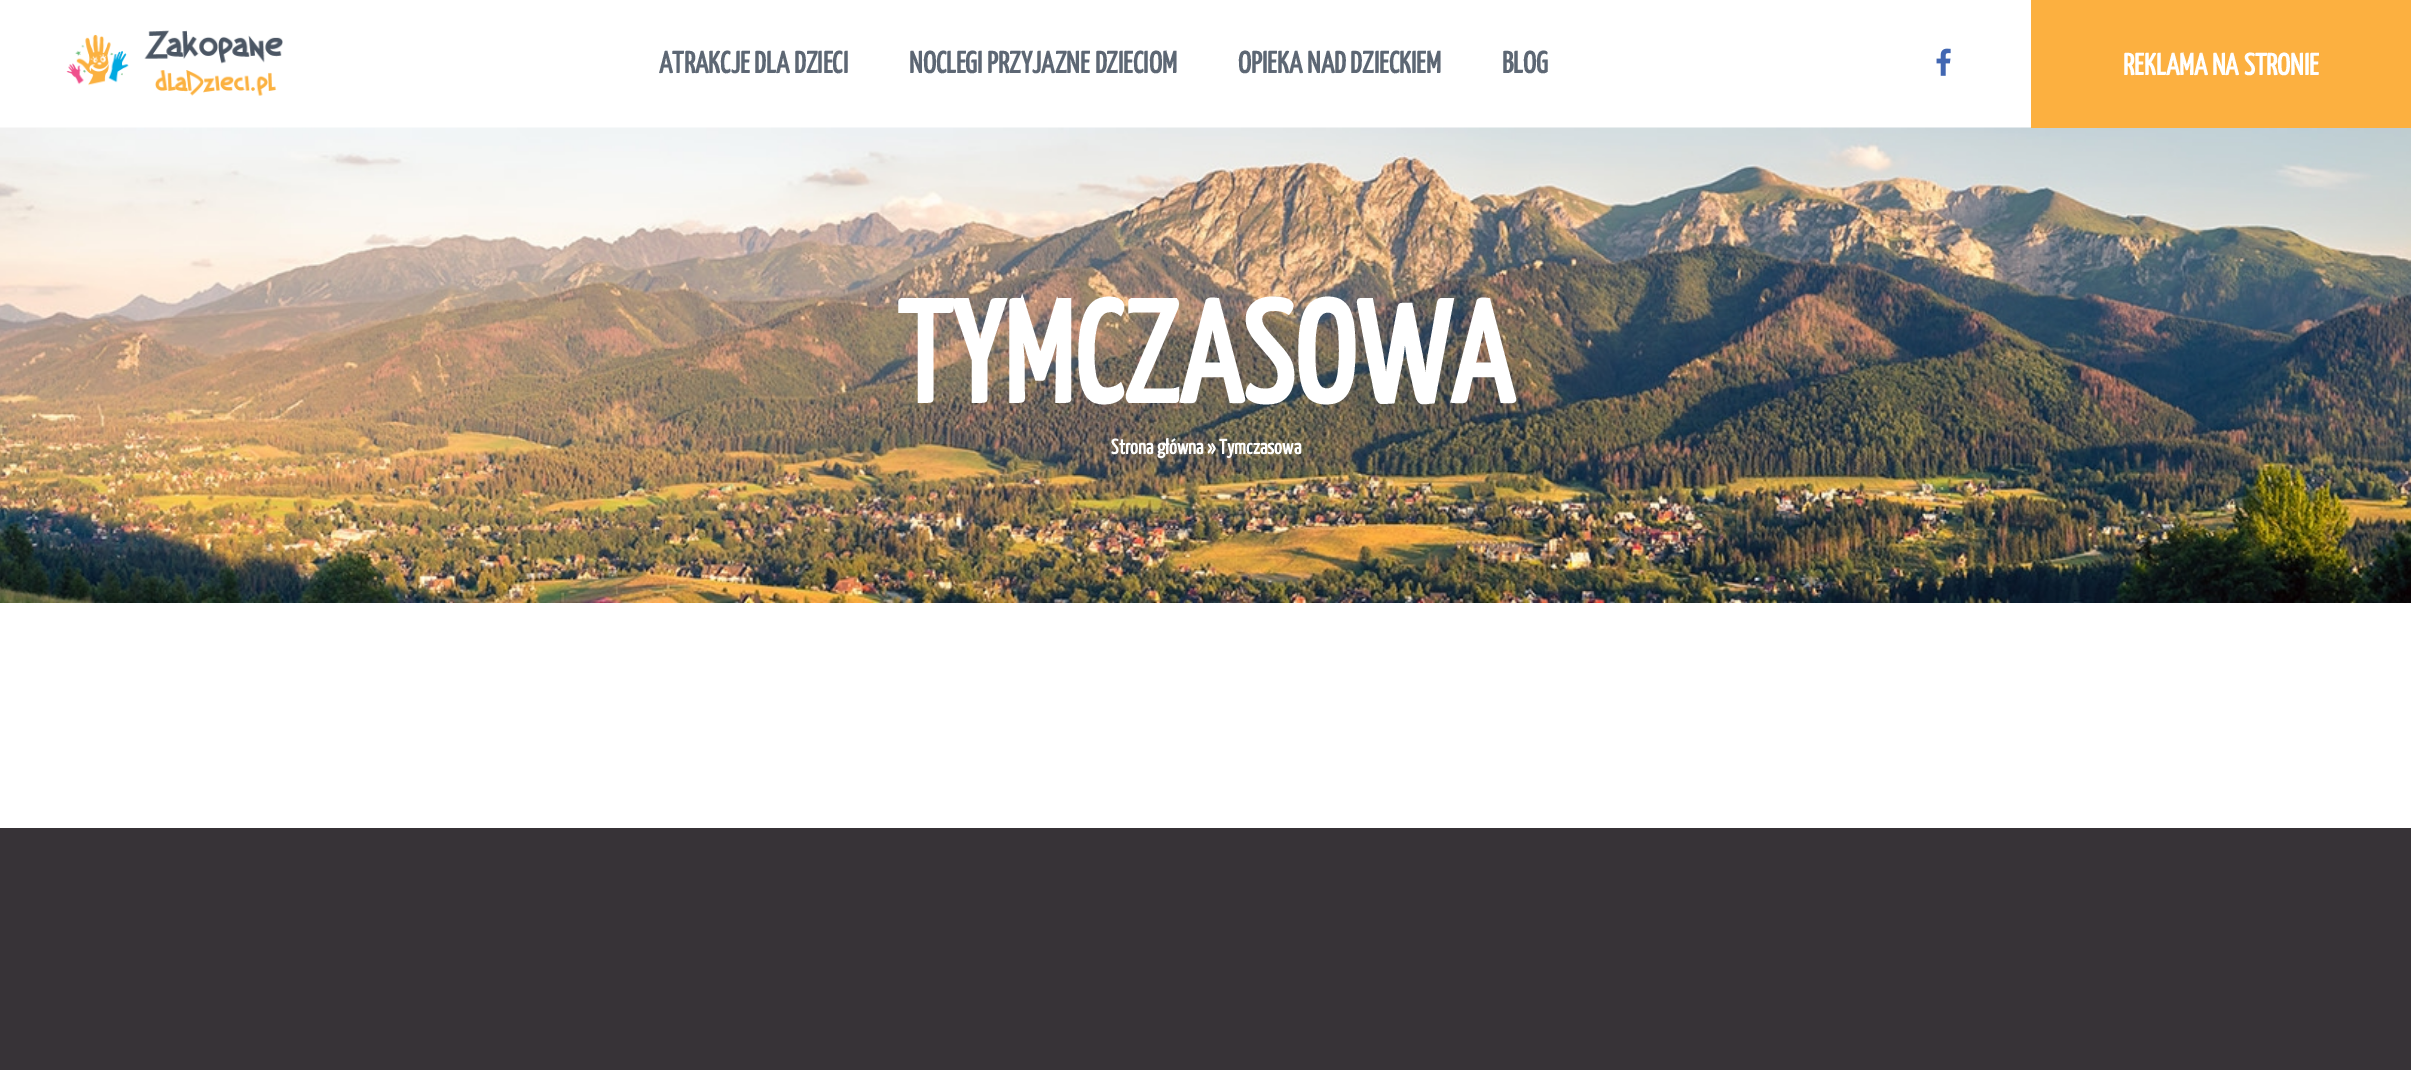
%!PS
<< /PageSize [2411 1070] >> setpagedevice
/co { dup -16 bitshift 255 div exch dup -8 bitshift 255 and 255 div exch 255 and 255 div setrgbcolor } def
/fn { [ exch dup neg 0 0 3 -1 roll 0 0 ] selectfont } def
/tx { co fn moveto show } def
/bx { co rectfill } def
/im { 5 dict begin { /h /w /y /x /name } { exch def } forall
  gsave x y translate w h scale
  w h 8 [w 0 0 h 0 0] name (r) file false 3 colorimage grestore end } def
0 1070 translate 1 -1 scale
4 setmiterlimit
0 0 2411 1070 16#FFFFFF bx
(media/1.raw) 66 30 217 66 im
(media/2.raw) 1936 48 15 28 im
(media/3.raw) 0 127 2411 476 im
2031 0 380 128 16#FCB040 bx
0 828 2411 242 16#373337 bx
(ATRAKCJE DLA DZIECI) 659 73 /YanoneKaffeesatz-Bold 30.5 16#5D6774 tx
(NOCLEGI PRZYJAZNE DZIECIOM) 909 73 /YanoneKaffeesatz-Bold 30.5 16#5D6774 tx
(OPIEKA NAD DZIECKIEM) 1238 73 /YanoneKaffeesatz-Bold 30.5 16#5D6774 tx
(BLOG) 1502 73 /YanoneKaffeesatz-Bold 30.5 16#5D6774 tx
(REKLAMA NA STRONIE) 2123 75 /YanoneKaffeesatz-Bold 30.5 16#FFFFFF tx
(TYMCZASOWA) 897 403 /YanoneKaffeesatz-Bold 144.5 16#FFFFFF tx
(Strona główna » Tymczasowa) 1111 454 /YanoneKaffeesatz-Bold 21 16#FFFFFF tx
showpage
